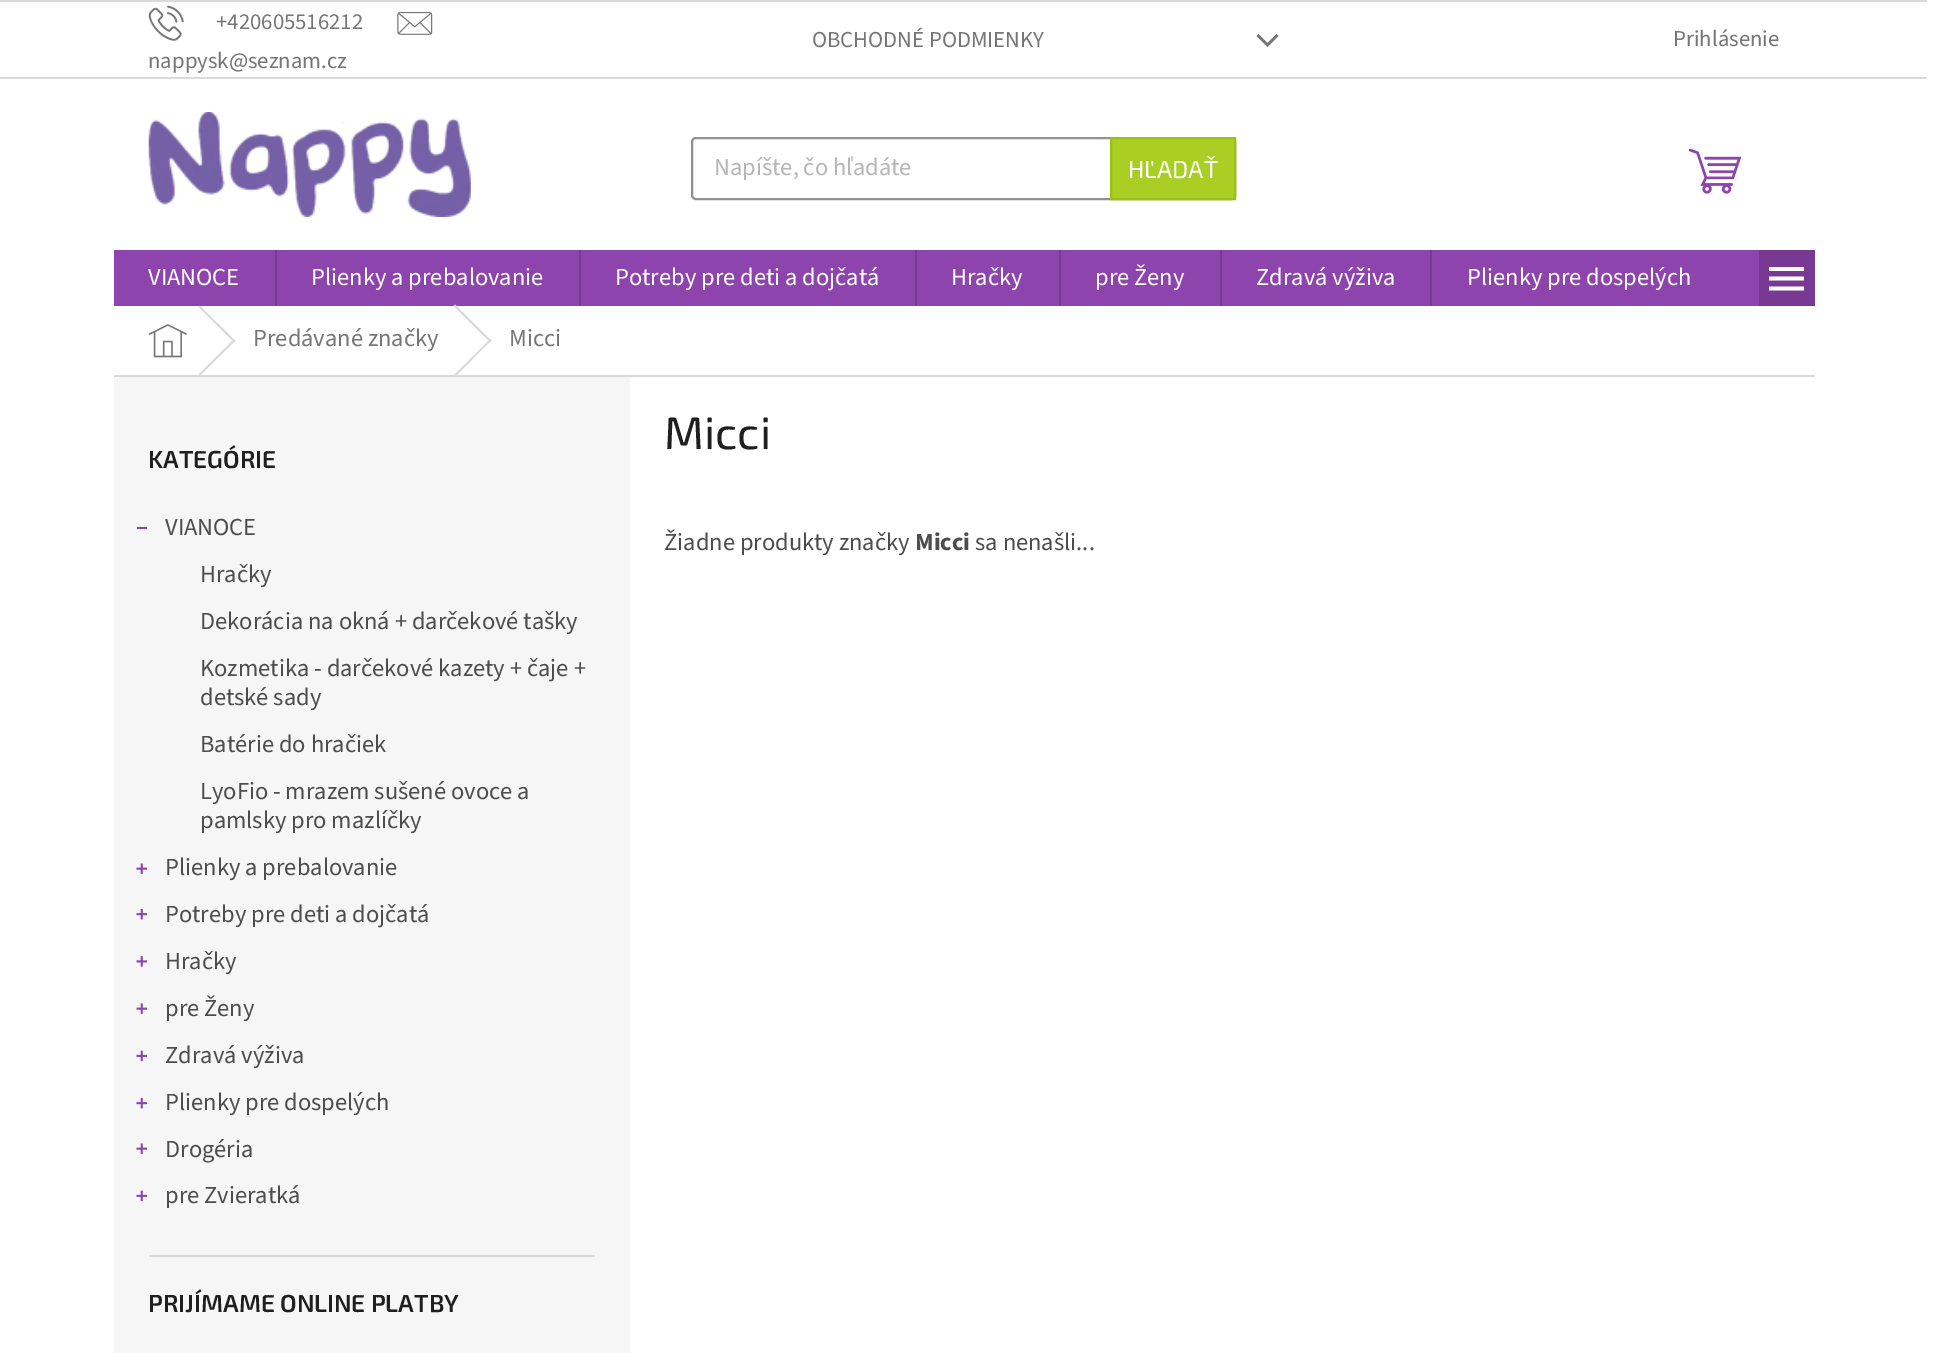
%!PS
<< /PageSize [1953 1353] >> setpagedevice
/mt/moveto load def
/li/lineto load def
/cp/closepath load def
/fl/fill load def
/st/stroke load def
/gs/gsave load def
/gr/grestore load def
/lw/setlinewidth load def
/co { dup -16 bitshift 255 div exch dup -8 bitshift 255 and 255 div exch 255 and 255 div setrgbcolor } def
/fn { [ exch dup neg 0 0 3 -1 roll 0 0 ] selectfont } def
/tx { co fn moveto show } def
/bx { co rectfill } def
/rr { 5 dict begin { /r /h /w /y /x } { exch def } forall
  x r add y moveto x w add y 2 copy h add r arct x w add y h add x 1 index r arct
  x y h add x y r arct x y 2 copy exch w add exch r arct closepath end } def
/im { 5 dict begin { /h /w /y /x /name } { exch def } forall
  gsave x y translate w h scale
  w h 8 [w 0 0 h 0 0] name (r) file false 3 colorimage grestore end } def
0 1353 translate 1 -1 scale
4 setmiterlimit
0 0 1953 1353 16#FFFFFF bx
0 0 1927 2 16#DADADA bx
0 77 1927 2 16#DADADA bx
(media/1.raw) 148 5 36 36 im
(media/2.raw) 397 11 36 24 im
16#767676 co
1256.5 36 mt 1258.5 34 li 1267.5 43 li 1276.5 34 li 1278.5 36 li 1267.5 47 li cp fl
(media/3.raw) 148 112 323 105 im
16#919191 co
2 lw
692 138 543 61 4 rr st
16#AACF24 co
1111 138 mt 1235 138 li 1235 199 li 1111 199 li cp gs fl gr
16#9BC20E co
st
(media/4.raw) 1688 148 54 46 im
114 250 1645 56 16#8E44AD bx
275 250 2 56 16#783993 bx
579 250 2 56 16#783993 bx
915 250 2 56 16#783993 bx
1059 250 2 56 16#783993 bx
1220 250 2 56 16#783993 bx
1430 250 2 56 16#783993 bx
1759 250 56 56 16#783993 bx
16#FFFFFF co
1769 290.5 mt 1804 290.5 li 1804 286.5 li 1769 286.5 li cp 1769 280.5 mt 1804 280.5 li 1804 276.5 li 1769 276.5 li cp 1769 267 mt 1769 271 li 1804 271 li 1804 267 li cp fl
114 375 1701 2 16#DADADA bx
(media/5.raw) 148 324 39 34 im
198.5 307 mt 200 306 li 235.5 341 li 234 342.5 li cp fl
234 339 mt 235.5 340.5 li 200 375.5 li 198.5 374.5 li cp fl
453.5 306 mt 455 304.5 li 491.5 341 li 490.5 342.5 li cp fl
490.5 339 mt 491.5 340 li 455 377 li 453.5 375.5 li cp fl
114 377 516 976 16#F6F6F6 bx
149 1255 446 2 16#DADADA bx
137 527 10 2 16#8E44AD bx
(media/6.raw) 136 863 11 11 im
(media/7.raw) 136 908 11 12 im
(media/8.raw) 136 956 11 11 im
(media/6.raw) 136 1003 11 11 im
(media/9.raw) 136 1050 11 12 im
(media/7.raw) 136 1097 11 12 im
(media/6.raw) 136 1143 11 11 im
(media/9.raw) 136 1190 11 12 im
(+420605516212) 216 29 /SourceSans3-Regular 22.75 16#767676 tx
(nappysk@seznam.cz) 148 68 /SourceSans3-Regular 22.75 16#767676 tx
(OBCHODNÉ PODMIENKY) 812 47 /SourceSans3-Regular 22.75 16#767676 tx
(Prihlásenie) 1673 46 /SourceSans3-Regular 22.75 16#767676 tx
(Napíšte, čo hľadáte) 714 175 /SourceSans3-Regular 24.5 16#B6B6B6 tx
(HĽADAŤ) 1128 178 /Exo2-Regular 24.5 16#FFFFFF tx
(VIANOCE) 148 285 /SourceSans3-Regular 24.5 16#FFFFFF tx
(Plienky a prebalovanie) 311 285 /SourceSans3-Regular 24.5 16#FFFFFF tx
(Potreby pre deti a dojčatá) 615 285 /SourceSans3-Regular 24.5 16#FFFFFF tx
(Hračky) 951 285 /SourceSans3-Regular 24.5 16#FFFFFF tx
(pre Ženy) 1095 285 /SourceSans3-Regular 24.5 16#FFFFFF tx
(Zdravá výživa) 1256 285 /SourceSans3-Regular 24.5 16#FFFFFF tx
(Plienky pre dospelých) 1467 285 /SourceSans3-Regular 24.5 16#FFFFFF tx
(Predávané značky) 253 346 /SourceSans3-Regular 24.5 16#767676 tx
(Micci) 509 346 /SourceSans3-Regular 24.5 16#767676 tx
(KATEGÓRIE) 148 468 /Exo2-SemiBold 24.5 16#1F1F1F tx
(VIANOCE) 165 535 /SourceSans3-Regular 24.5 16#4D4D4D tx
(Hračky) 200 582 /SourceSans3-Regular 24.5 16#4D4D4D tx
(Dekorácia na okná + darčekové tašky) 200 629 /SourceSans3-Regular 24.5 16#4D4D4D tx
(Kozmetika - darčekové kazety + čaje +) 200 676 /SourceSans3-Regular 24.5 16#4D4D4D tx
(detské sady) 200 705 /SourceSans3-Regular 24.5 16#4D4D4D tx
(Batérie do hračiek) 200 752 /SourceSans3-Regular 24.5 16#4D4D4D tx
(LyoFio - mrazem sušené ovoce a) 200 799 /SourceSans3-Regular 24.5 16#4D4D4D tx
(pamlsky pro mazlíčky) 200 828 /SourceSans3-Regular 24.5 16#4D4D4D tx
(Plienky a prebalovanie) 165 875 /SourceSans3-Regular 24.5 16#4D4D4D tx
(Potreby pre deti a dojčatá) 165 922 /SourceSans3-Regular 24.5 16#4D4D4D tx
(Hračky) 165 969 /SourceSans3-Regular 24.5 16#4D4D4D tx
(pre Ženy) 165 1016 /SourceSans3-Regular 24.5 16#4D4D4D tx
(Zdravá výživa) 165 1063 /SourceSans3-Regular 24.5 16#4D4D4D tx
(Plienky pre dospelých) 165 1110 /SourceSans3-Regular 24.5 16#4D4D4D tx
(Drogéria) 165 1157 /SourceSans3-Regular 24.5 16#4D4D4D tx
(pre Zvieratká) 165 1203 /SourceSans3-Regular 24.5 16#4D4D4D tx
(PRIJÍMAME ONLINE PLATBY) 148 1312 /Exo2-SemiBold 24.5 16#1F1F1F tx
(Micci) 664 449 /Exo2-Regular 45.5 16#1F1F1F tx
(Žiadne produkty značky) 664 550 /SourceSans3-Regular 24.5 16#4D4D4D tx
(Micci) 915 550 /SourceSans3-Bold 24.5 16#4D4D4D tx
(sa nenašli...) 975 550 /SourceSans3-Regular 24.5 16#4D4D4D tx
showpage
